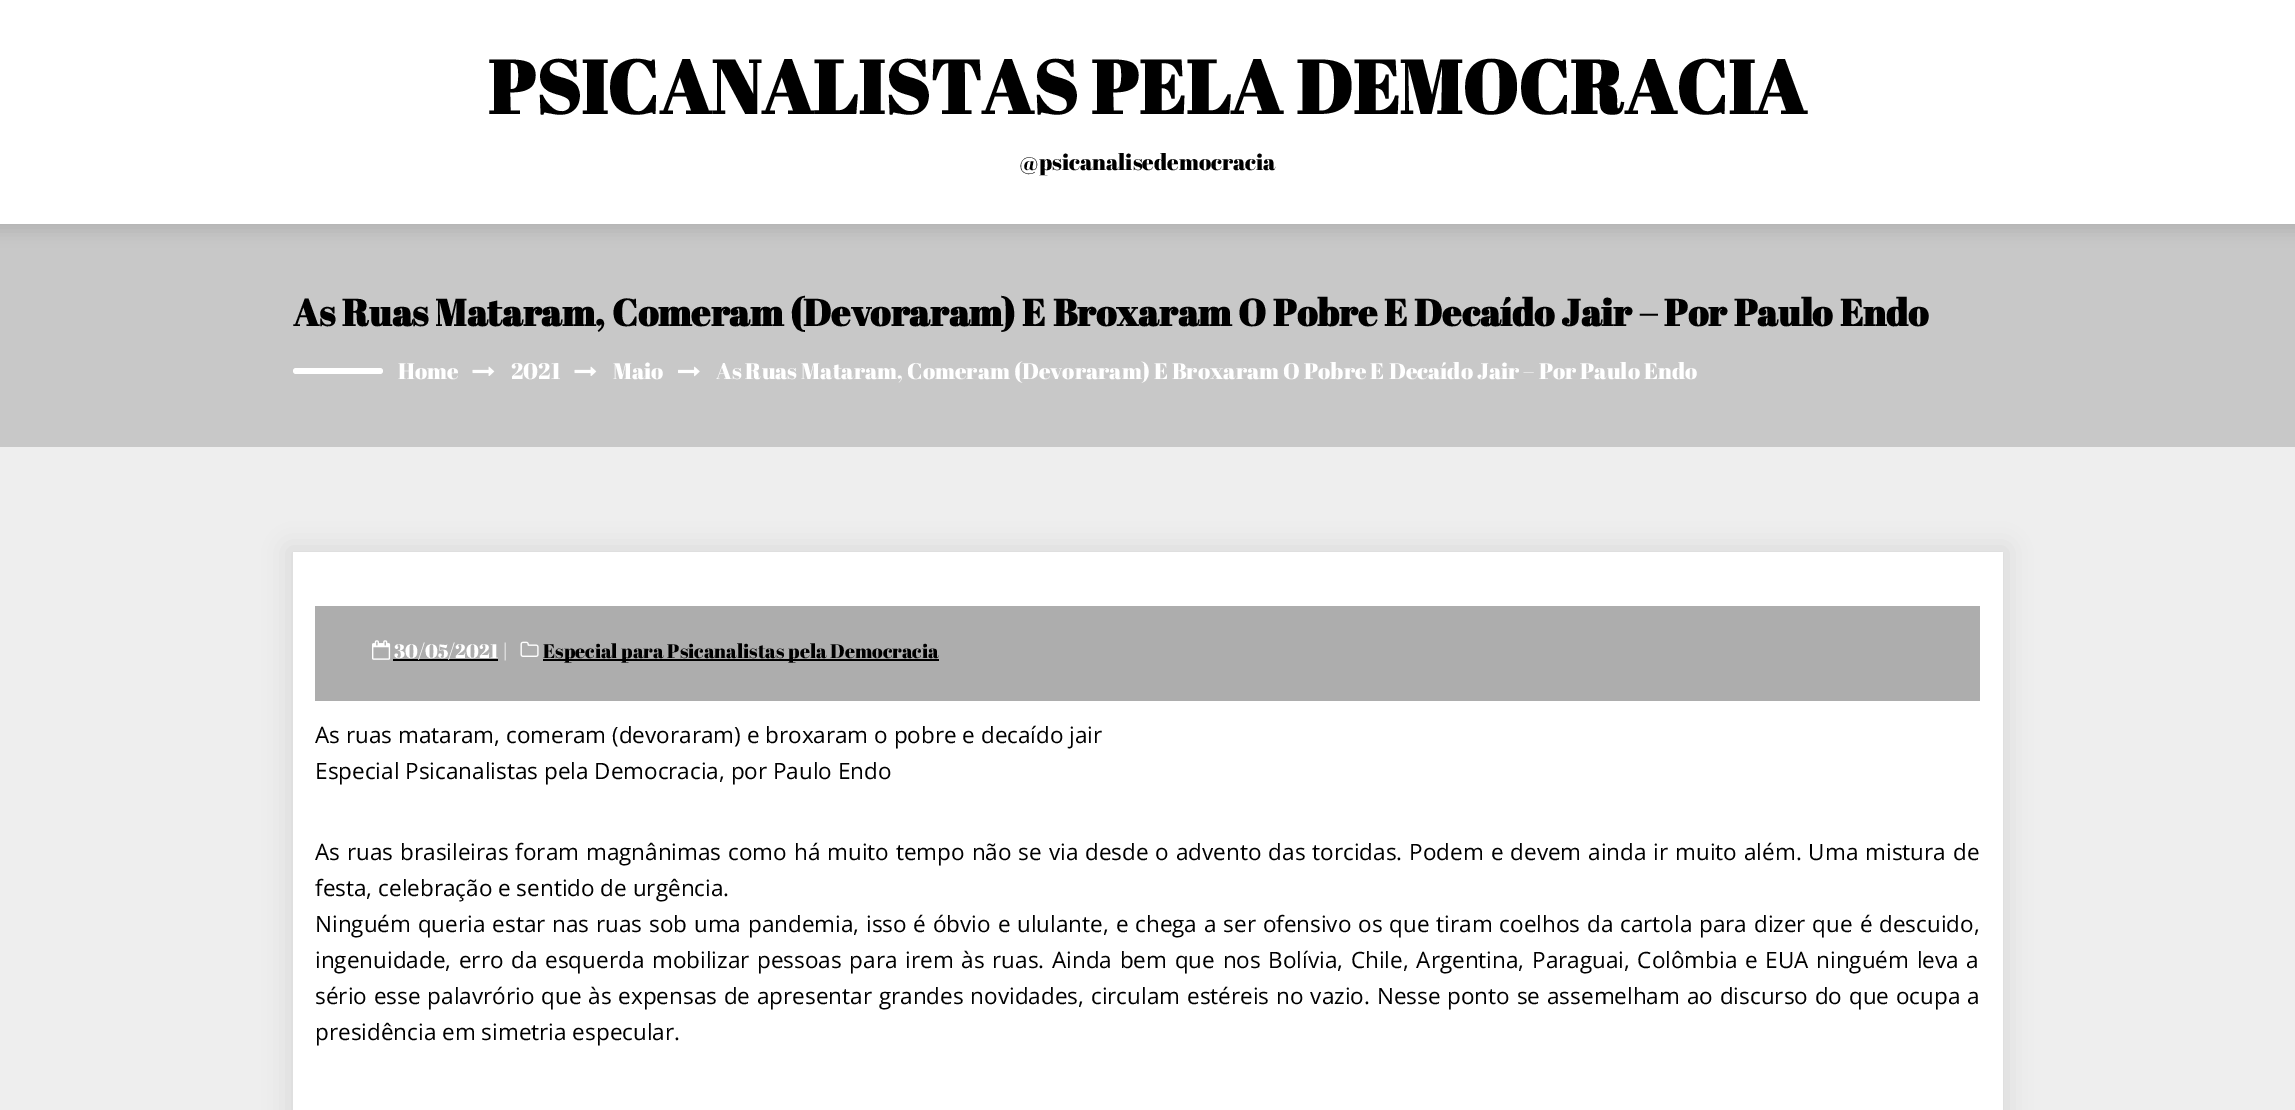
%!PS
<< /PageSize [2295 1110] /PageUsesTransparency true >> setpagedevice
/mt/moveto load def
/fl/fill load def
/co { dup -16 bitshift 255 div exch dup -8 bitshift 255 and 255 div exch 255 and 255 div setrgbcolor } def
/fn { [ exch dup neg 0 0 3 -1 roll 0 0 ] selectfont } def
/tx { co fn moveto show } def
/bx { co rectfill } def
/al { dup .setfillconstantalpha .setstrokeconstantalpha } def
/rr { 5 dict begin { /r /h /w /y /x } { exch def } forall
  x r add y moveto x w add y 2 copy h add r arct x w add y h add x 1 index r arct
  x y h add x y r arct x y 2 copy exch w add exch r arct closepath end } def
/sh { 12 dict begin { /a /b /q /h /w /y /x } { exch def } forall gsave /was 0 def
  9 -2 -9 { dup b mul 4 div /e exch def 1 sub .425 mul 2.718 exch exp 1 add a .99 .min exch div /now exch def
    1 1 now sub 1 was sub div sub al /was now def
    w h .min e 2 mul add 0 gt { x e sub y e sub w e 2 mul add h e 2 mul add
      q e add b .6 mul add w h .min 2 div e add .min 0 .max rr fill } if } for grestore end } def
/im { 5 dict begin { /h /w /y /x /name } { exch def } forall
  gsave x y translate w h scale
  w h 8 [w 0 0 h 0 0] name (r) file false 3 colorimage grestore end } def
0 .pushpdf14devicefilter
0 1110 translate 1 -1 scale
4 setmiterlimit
0 0 2295 1110 16#EEEEEE bx
0 224 2295 223 16#C8C8C8 bx
16#000000 co
-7 -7 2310 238 0 7.5 .1 sh
0 0 2295 224 16#FFFFFF bx
293 368 90 6 3 rr fl
(media/1.raw) 472 366 23 10 im
(media/1.raw) 574 366 23 10 im
(media/2.raw) 678 366 22 11 im
16#000000 co
288 548 1719 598 0 12 .08 sh
293 552 1710 558 16#FFFFFF bx
315 606 1665 95 16#ADADAD bx
(media/3.raw) 372 640 19 20 im
393 659 105 2 16#000000 bx
(media/4.raw) 520 641 19 16 im
543 659 396 2 16#000000 bx
(PSICANALISTAS PELA DEMOCRACIA) 488 114 /AbrilFatface-Bold 75 16#000000 tx
(@psicanalisedemocracia) 1019 170 /AbrilFatface-Regular 22.5 16#000000 tx
(As Ruas Mataram, Comeram \(Devoraram\) E Broxaram O Pobre E Decaído Jair – Por Paulo Endo) 293 326 /AbrilFatface-Bold 37.5 16#000000 tx
(Home) 398 379 /AbrilFatface-Regular 22.5 16#FFFFFF tx
(2021) 511 379 /AbrilFatface-Regular 22.5 16#FFFFFF tx
(Maio) 613 379 /AbrilFatface-Regular 22.5 16#FFFFFF tx
(As Ruas Mataram, Comeram \(Devoraram\) E Broxaram O Pobre E Decaído Jair – Por Paulo Endo) 716 379 /AbrilFatface-Regular 22.5 16#FFFFFF tx
(30/05/2021) 394 658 /AbrilFatface-Regular 19.5 16#FFFFFF tx
(|) 502 658 /AbrilFatface-Regular 19.5 16#FFFFFF tx
(Especial para Psicanalistas pela Democracia) 543 658 /AbrilFatface-Regular 19.5 16#000000 tx
(As ruas mataram, comeram \(devoraram\) e broxaram o pobre e decaído jair) 315 743 /OpenSans-Regular 22.5 16#000000 tx
(Especial Psicanalistas pela Democracia, por Paulo Endo) 315 779 /OpenSans-Regular 22.5 16#000000 tx
315 860 mt 1.1 0 32 (As ruas brasileiras foram magnânimas como há muito tempo não se via desde o advento das torcidas. Podem e devem ainda ir muito além. Uma mistura de) widthshow
(festa, celebração e sentido de urgência.) 315 896 /OpenSans-Regular 22.5 16#000000 tx
315 932 mt 1 0 32 (Ninguém queria estar nas ruas sob uma pandemia, isso é óbvio e ululante, e chega a ser ofensivo os que tiram coelhos da cartola para dizer que é descuido,) widthshow
315 968 mt 1.9 0 32 (ingenuidade, erro da esquerda mobilizar pessoas para irem às ruas. Ainda bem que nos Bolívia, Chile, Argentina, Paraguai, Colômbia e EUA ninguém leva a) widthshow
315 1004 mt 1.05 0 32 (sério esse palavrório que às expensas de apresentar grandes novidades, circulam estéreis no vazio. Nesse ponto se assemelham ao discurso do que ocupa a) widthshow
(presidência em simetria especular.) 315 1040 /OpenSans-Regular 22.5 16#000000 tx
.poppdf14devicefilter showpage
